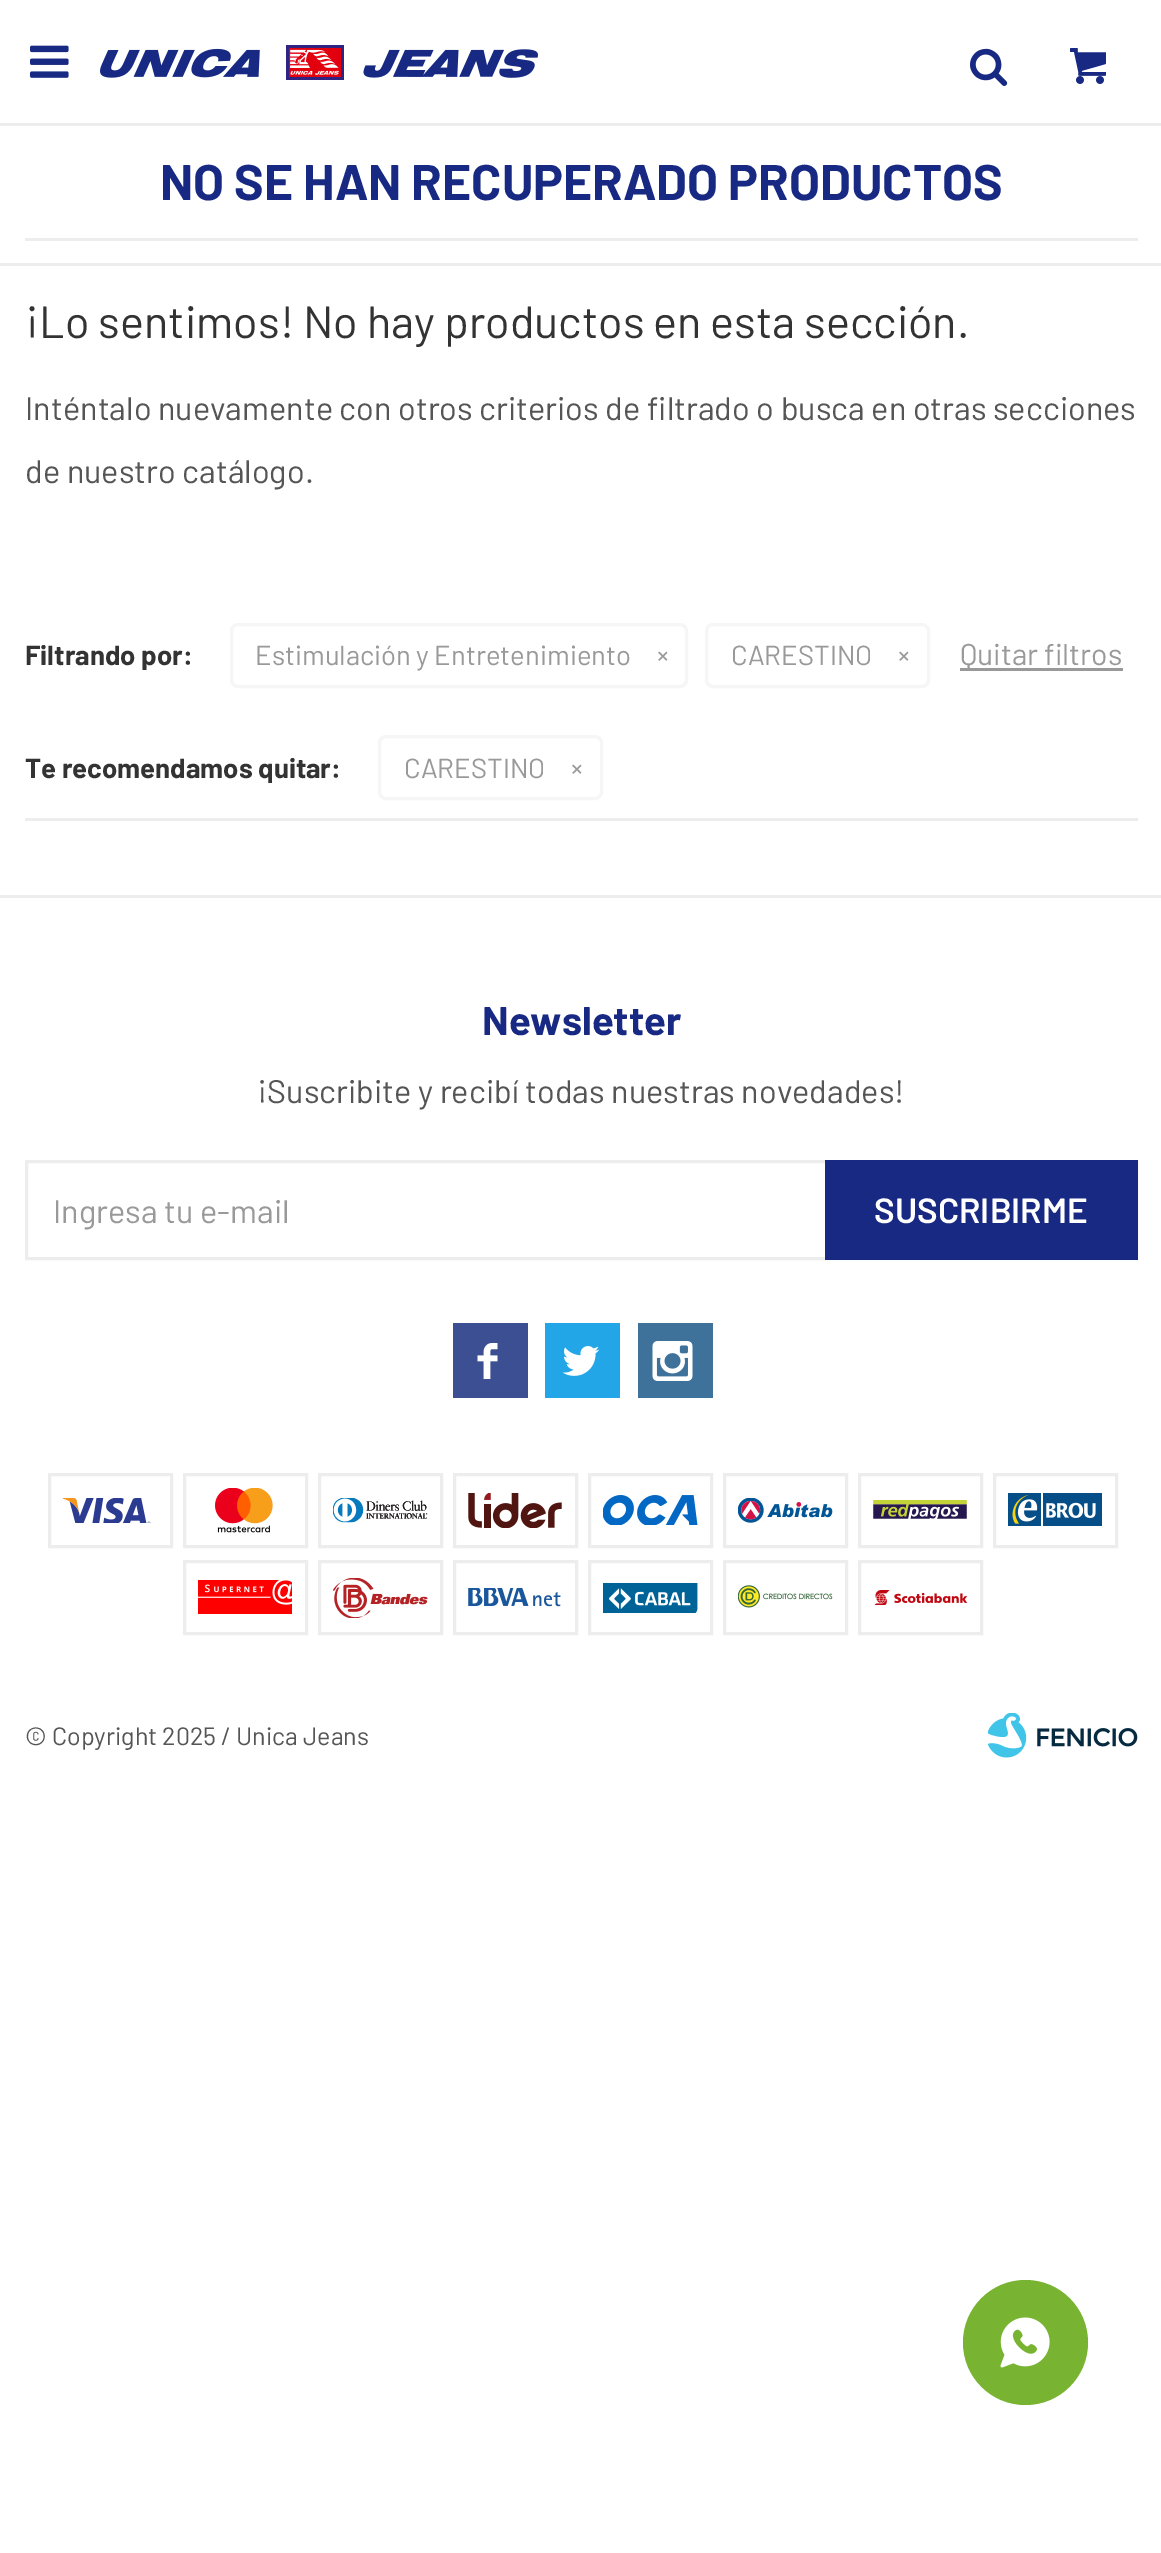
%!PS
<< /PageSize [1161 2553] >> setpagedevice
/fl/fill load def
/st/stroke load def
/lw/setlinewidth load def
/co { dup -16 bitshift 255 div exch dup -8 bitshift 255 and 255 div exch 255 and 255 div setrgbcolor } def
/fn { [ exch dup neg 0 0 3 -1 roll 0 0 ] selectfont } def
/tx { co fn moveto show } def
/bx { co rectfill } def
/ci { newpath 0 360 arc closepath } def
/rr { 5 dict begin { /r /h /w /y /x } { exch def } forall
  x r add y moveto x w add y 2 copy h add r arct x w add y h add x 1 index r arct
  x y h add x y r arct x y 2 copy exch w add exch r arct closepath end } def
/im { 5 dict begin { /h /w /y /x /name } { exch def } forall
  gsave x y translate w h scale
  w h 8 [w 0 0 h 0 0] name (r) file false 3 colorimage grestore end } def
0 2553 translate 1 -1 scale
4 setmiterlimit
0 0 1161 2553 16#FFFFFF bx
(media/1.raw) 30 45 39 33 im
(media/2.raw) 100 45 438 35 im
(media/3.raw) 970 48 38 38 im
(media/4.raw) 1070 48 36 36 im
0 123 1161 3 16#EDEDED bx
25 238 1113 3 16#EDEDED bx
0 263 1161 3 16#EDEDED bx
25 818 1113 3 16#EDEDED bx
16#F6F6F6 co
3 lw
231.5 624.5 455 62 6.5 rr st
706.5 624.5 222 62 6.5 rr st
960 668 163 3 16#999999 bx
16#F6F6F6 co
379.5 736.5 222 62 6.5 rr st
0 895 1161 3 16#EDEDED bx
26.5 1161.5 1110 97 rectstroke
825 1160 313 100 16#172983 bx
453 1323 75 75 16#3B4F92 bx
(media/5.raw) 477 1343 21 36 im
545 1323 75 75 16#22A6E7 bx
(media/6.raw) 562 1346 38 30 im
638 1323 75 75 16#3F729B bx
(media/7.raw) 652 1341 41 40 im
16#EDEDED co
49.5 1474.5 122 72 rectstroke
(media/8.raw) 63 1498 88 25 im
184.5 1474.5 122 72 rectstroke
(media/9.raw) 215 1488 58 45 im
319.5 1474.5 122 72 rectstroke
(media/10.raw) 333 1498 95 25 im
454.5 1474.5 122 72 rectstroke
(media/11.raw) 468 1493 94 35 im
589.5 1474.5 122 72 rectstroke
(media/12.raw) 603 1495 95 30 im
724.5 1474.5 122 72 rectstroke
(media/13.raw) 738 1498 95 25 im
859.5 1474.5 122 72 rectstroke
(media/14.raw) 873 1500 94 19 im
994.5 1474.5 122 72 rectstroke
(media/15.raw) 1008 1493 94 33 im
184.5 1561.5 122 72 rectstroke
(media/16.raw) 198 1580 94 34 im
319.5 1561.5 122 72 rectstroke
(media/17.raw) 333 1578 95 40 im
454.5 1561.5 122 72 rectstroke
(media/18.raw) 468 1588 93 19 im
589.5 1561.5 122 72 rectstroke
(media/19.raw) 603 1583 95 30 im
724.5 1561.5 122 72 rectstroke
(media/20.raw) 738 1585 95 23 im
859.5 1561.5 122 72 rectstroke
(media/21.raw) 874 1590 94 15 im
(media/22.raw) 988 1713 150 45 im
16#78B432 co
1025.5 2342.5 62.5 ci fl
(media/23.raw) 1000 2317 50 51 im
(NO SE HAN RECUPERADO PRODUCTOS) 160 200 /Barlow-Bold 50 16#172983 tx
(¡Lo sentimos! No hay productos en esta sección.) 25 338 /Barlow-Regular 45 16#333333 tx
(Inténtalo nuevamente con otros criterios de filtrado o busca en otras secciones) 25 420 /Barlow-Regular 32.5 16#555555 tx
(de nuestro catálogo.) 25 483 /Barlow-Regular 32.5 16#555555 tx
(Filtrando por:) 25 665 /Barlow-Bold 27.5 16#333333 tx
(Estimulación y Entretenimiento) 255 665 /Barlow-Regular 27.5 16#999999 tx
(×) 657 665 /Barlow-Regular 27.5 16#999999 tx
(CARESTINO) 731 665 /Barlow-Regular 27.5 16#999999 tx
(×) 898 665 /Barlow-Regular 27.5 16#999999 tx
(Quitar filtros) 960 665 /Barlow-Regular 30 16#999999 tx
(Te recomendamos quitar:) 25 778 /Barlow-Bold 27.5 16#333333 tx
(CARESTINO) 404 778 /Barlow-Regular 27.5 16#999999 tx
(×) 571 778 /Barlow-Regular 27.5 16#999999 tx
(Newsletter) 482 1035 /Barlow-Bold 40 16#172983 tx
(¡Suscribite y recibí todas nuestras novedades!) 257 1103 /Barlow-Regular 32.5 16#555555 tx
(Ingresa tu e-mail) 53 1223 /Barlow-Regular 32.5 16#999999 tx
(SUSCRIBIRME) 874 1223 /Barlow-SemiBold 35 16#FFFFFF tx
(© Copyright 2025 / Unica Jeans) 25 1745 /Barlow-Regular 25 16#555555 tx
showpage
